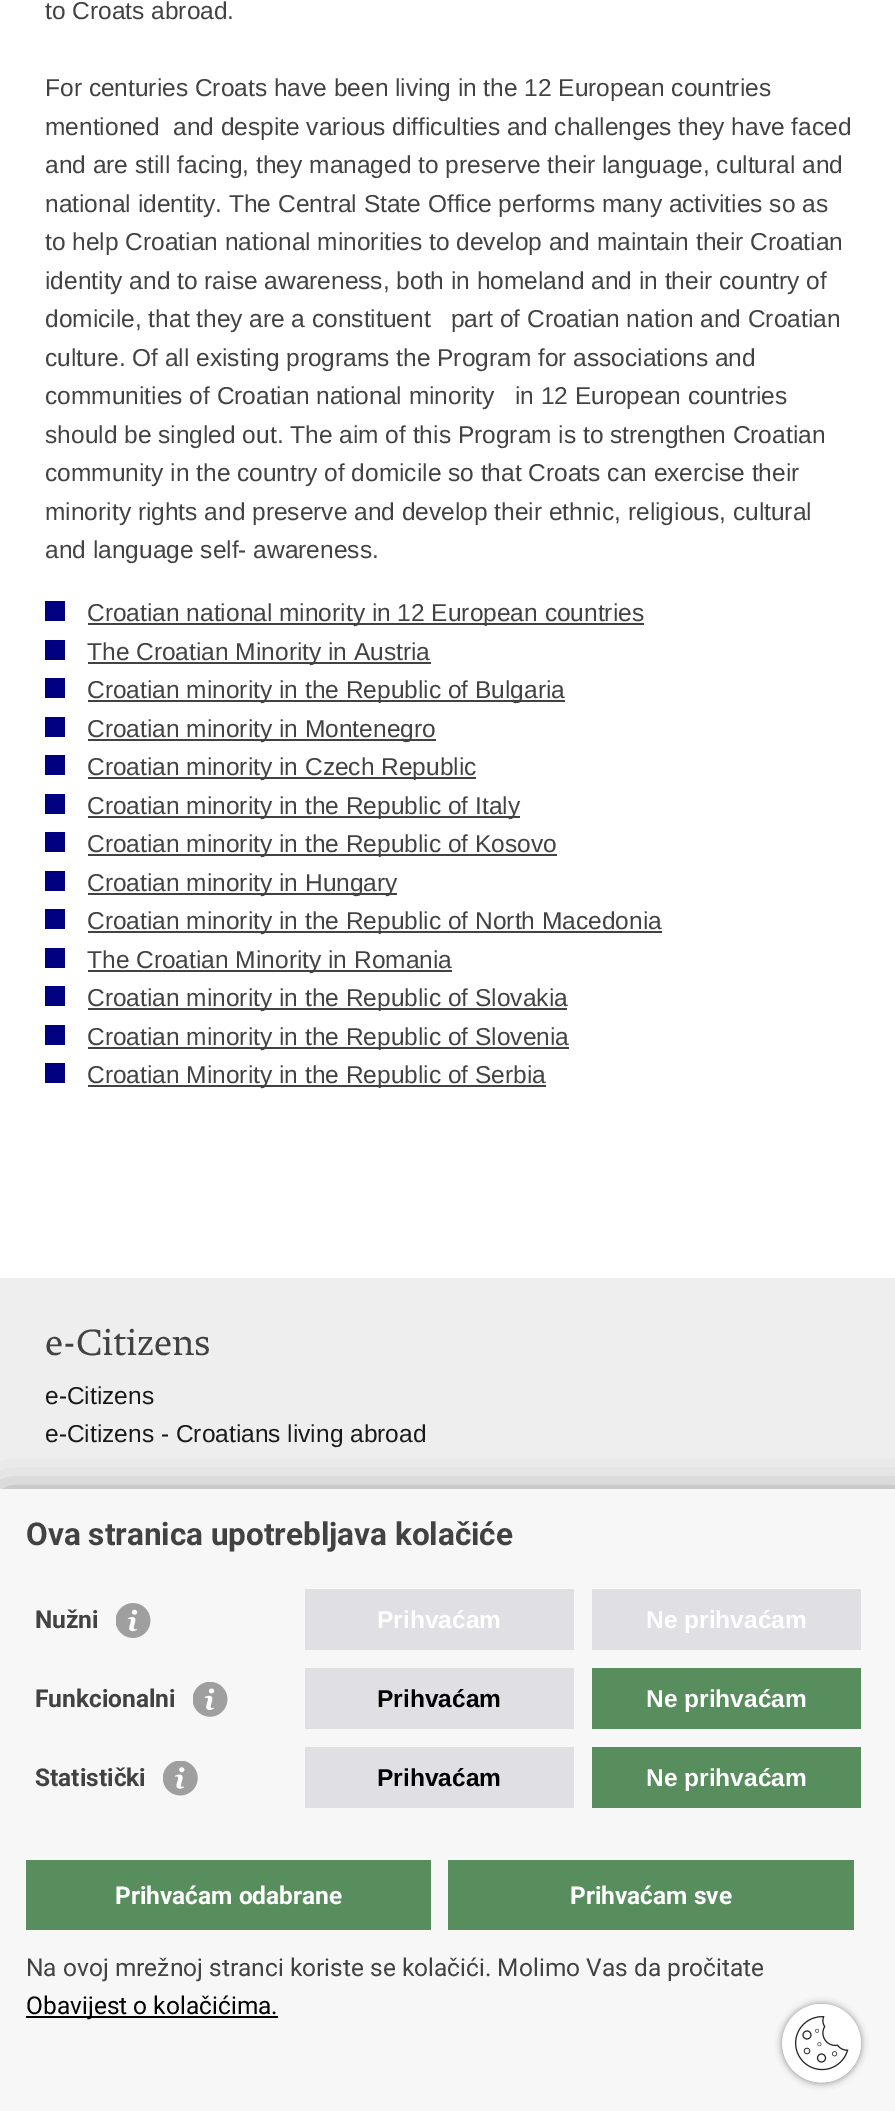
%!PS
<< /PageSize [895 2111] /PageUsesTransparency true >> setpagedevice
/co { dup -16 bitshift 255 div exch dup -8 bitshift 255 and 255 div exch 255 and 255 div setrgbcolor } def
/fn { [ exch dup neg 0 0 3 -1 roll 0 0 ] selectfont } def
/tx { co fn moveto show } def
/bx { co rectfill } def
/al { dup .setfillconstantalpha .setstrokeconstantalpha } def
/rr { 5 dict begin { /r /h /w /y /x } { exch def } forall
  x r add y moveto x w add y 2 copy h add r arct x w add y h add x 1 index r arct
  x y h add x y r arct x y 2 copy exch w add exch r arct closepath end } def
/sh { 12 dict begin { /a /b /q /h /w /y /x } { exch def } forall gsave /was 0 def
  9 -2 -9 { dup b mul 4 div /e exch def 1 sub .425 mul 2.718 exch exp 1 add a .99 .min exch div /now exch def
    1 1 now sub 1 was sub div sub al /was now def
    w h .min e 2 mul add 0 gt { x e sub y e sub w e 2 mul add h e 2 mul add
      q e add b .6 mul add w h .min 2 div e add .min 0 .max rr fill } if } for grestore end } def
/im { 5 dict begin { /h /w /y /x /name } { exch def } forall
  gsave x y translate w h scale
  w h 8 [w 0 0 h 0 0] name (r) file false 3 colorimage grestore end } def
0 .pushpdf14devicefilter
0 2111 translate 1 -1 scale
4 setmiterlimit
0 0 895 2111 16#FFFFFF bx
45 601 20 20 16#000080 bx
88 623 556 2 16#424242 bx
45 640 20 20 16#000080 bx
88 662 343 2 16#424242 bx
45 678 20 20 16#000080 bx
88 700 477 2 16#424242 bx
45 717 20 20 16#000080 bx
88 739 348 2 16#424242 bx
45 755 20 20 16#000080 bx
88 777 388 2 16#424242 bx
45 794 20 20 16#000080 bx
88 816 432 2 16#424242 bx
45 832 20 20 16#000080 bx
88 854 469 2 16#424242 bx
45 871 20 20 16#000080 bx
88 893 309 2 16#424242 bx
45 909 20 20 16#000080 bx
88 931 574 2 16#424242 bx
45 948 20 20 16#000080 bx
88 970 364 2 16#424242 bx
45 986 20 20 16#000080 bx
88 1008 479 2 16#424242 bx
45 1025 20 20 16#000080 bx
88 1047 481 2 16#424242 bx
45 1063 20 20 16#000080 bx
88 1085 458 2 16#424242 bx
0 1278 895 211 16#EEEEEE bx
16#000000 co
5 1498 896 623 0 17.5 .5 sh
0 1489 895 622 16#F7F7F7 bx
(media/1.raw) 116 1603 35 35 im
305 1589 269 61 16#E0E0E4 bx
592 1589 269 61 16#E0E0E4 bx
(media/2.raw) 193 1682 35 35 im
305 1668 269 61 16#E0E0E4 bx
592 1668 269 61 16#588E5E bx
(media/3.raw) 163 1761 35 35 im
305 1747 269 61 16#E0E0E4 bx
592 1747 269 61 16#588E5E bx
26 1860 405 70 16#588E5E bx
448 1860 406 70 16#588E5E bx
26 2016 252 2 16#000000 bx
16#858585 co
782 2004 79 79 39.5 3.5 1 sh
(media/4.raw) 782 2004 79 79 im
(to Croats abroad.) 45 19 /LiberationSans-Regular 24.5 16#424242 tx
(For centuries Croats have been living in the 12 European countries) 45 96 /LiberationSans-Regular 24.5 16#424242 tx
(mentioned  and despite various difficulties and challenges they have faced) 45 135 /LiberationSans-Regular 24.5 16#424242 tx
(and are still facing, they managed to preserve their language, cultural and) 45 173 /LiberationSans-Regular 24.5 16#424242 tx
(national identity. The Central State Office performs many activities so as) 45 212 /LiberationSans-Regular 24.5 16#424242 tx
(to help Croatian national minorities to develop and maintain their Croatian) 45 250 /LiberationSans-Regular 24.5 16#424242 tx
(identity and to raise awareness, both in homeland and in their country of) 45 289 /LiberationSans-Regular 24.5 16#424242 tx
(domicile, that they are a constituent   part of Croatian nation and Croatian) 45 327 /LiberationSans-Regular 24.5 16#424242 tx
(culture. Of all existing programs the Program for associations and) 45 366 /LiberationSans-Regular 24.5 16#424242 tx
(communities of Croatian national minority   in 12 European countries) 45 404 /LiberationSans-Regular 24.5 16#424242 tx
(should be singled out. The aim of this Program is to strengthen Croatian) 45 443 /LiberationSans-Regular 24.5 16#424242 tx
(community in the country of domicile so that Croats can exercise their) 45 481 /LiberationSans-Regular 24.5 16#424242 tx
(minority rights and preserve and develop their ethnic, religious, cultural) 45 520 /LiberationSans-Regular 24.5 16#424242 tx
(and language self- awareness.) 45 558 /LiberationSans-Regular 24.5 16#424242 tx
(Croatian national minority in 12 European countries) 87 621 /LiberationSans-Regular 24.5 16#424242 tx
(The Croatian Minority in Austria) 87 660 /LiberationSans-Regular 24.5 16#424242 tx
(Croatian minority in the Republic of Bulgaria) 87 698 /LiberationSans-Regular 24.5 16#424242 tx
(Croatian minority in Montenegro) 87 737 /LiberationSans-Regular 24.5 16#424242 tx
(Croatian minority in Czech Republic) 87 775 /LiberationSans-Regular 24.5 16#424242 tx
(Croatian minority in the Republic of Italy) 87 814 /LiberationSans-Regular 24.5 16#424242 tx
(Croatian minority in the Republic of Kosovo) 87 852 /LiberationSans-Regular 24.5 16#424242 tx
(Croatian minority in Hungary) 87 891 /LiberationSans-Regular 24.5 16#424242 tx
(Croatian minority in the Republic of North Macedonia) 87 929 /LiberationSans-Regular 24.5 16#424242 tx
(The Croatian Minority in Romania) 87 968 /LiberationSans-Regular 24.5 16#424242 tx
(Croatian minority in the Republic of Slovakia) 87 1006 /LiberationSans-Regular 24.5 16#424242 tx
(Croatian minority in the Republic of Slovenia) 87 1045 /LiberationSans-Regular 24.5 16#424242 tx
(Croatian Minority in the Republic of Serbia) 87 1083 /LiberationSans-Regular 24.5 16#424242 tx
(e-Citizens) 45 1355 /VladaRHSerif-Regular 38.5 16#424242 tx
(e-Citizens) 45 1404 /LiberationSans-Regular 24.5 16#191919 tx
(e-Citizens - Croatians living abroad) 45 1442 /LiberationSans-Regular 24.5 16#191919 tx
(Ova stranica upotrebljava kolačiće) 26 1545 /Roboto-Bold 31.5 16#424242 tx
(Nužni) 35 1628 /Roboto-Bold 24.5 16#424242 tx
(Prihvaćam) 377 1628 /LiberationSans-Bold 24.5 16#FFFFFF tx
(Ne prihvaćam) 646 1628 /LiberationSans-Bold 24.5 16#FFFFFF tx
(Funkcionalni) 35 1707 /Roboto-Bold 24.5 16#424242 tx
(Prihvaćam) 377 1707 /LiberationSans-Bold 24.5 16#000000 tx
(Ne prihvaćam) 646 1707 /LiberationSans-Bold 24.5 16#FFFFFF tx
(Statistički) 35 1786 /Roboto-Bold 24.5 16#424242 tx
(Prihvaćam) 377 1786 /LiberationSans-Bold 24.5 16#000000 tx
(Ne prihvaćam) 646 1786 /LiberationSans-Bold 24.5 16#FFFFFF tx
(Prihvaćam odabrane) 115 1904 /Roboto-Bold 24.5 16#FFFFFF tx
(Prihvaćam sve) 570 1904 /Roboto-Bold 24.5 16#FFFFFF tx
(Na ovoj mrežnoj stranci koriste se kolačići. Molimo Vas da pročitate) 26 1976 /Roboto-Regular 24.5 16#424242 tx
(Obavijest o kolačićima.) 26 2014 /Roboto-Regular 24.5 16#000000 tx
.poppdf14devicefilter showpage
